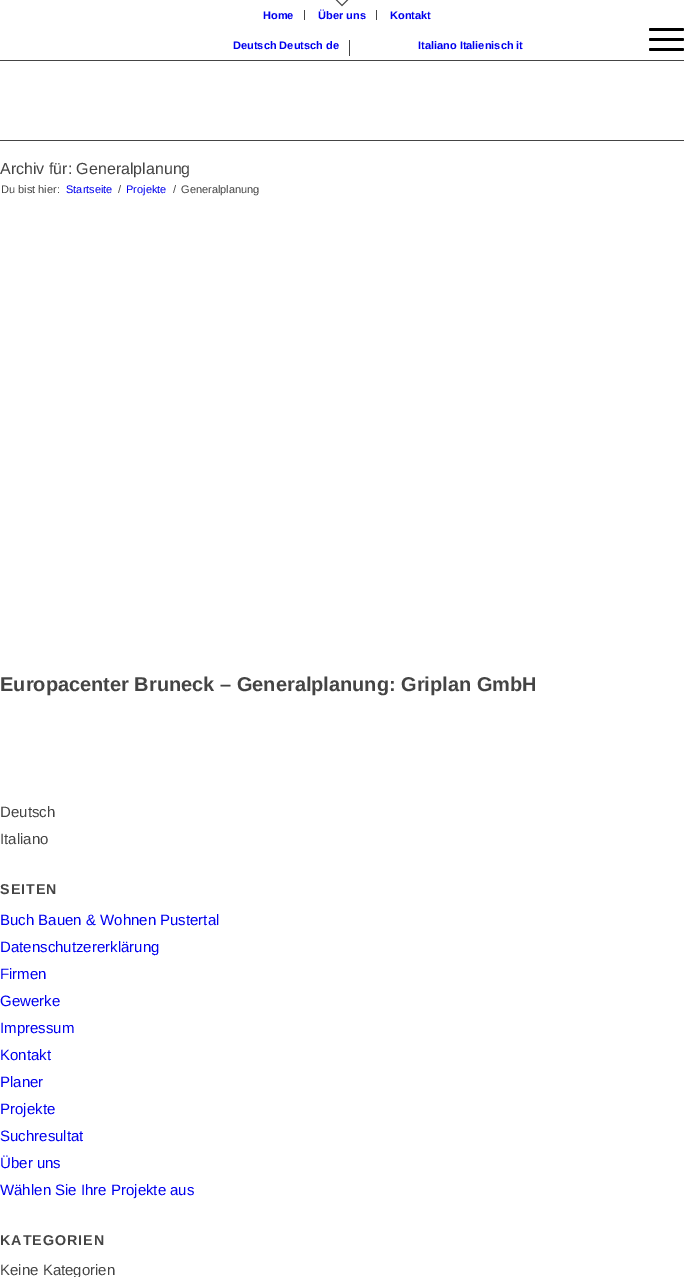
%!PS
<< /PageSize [684 1277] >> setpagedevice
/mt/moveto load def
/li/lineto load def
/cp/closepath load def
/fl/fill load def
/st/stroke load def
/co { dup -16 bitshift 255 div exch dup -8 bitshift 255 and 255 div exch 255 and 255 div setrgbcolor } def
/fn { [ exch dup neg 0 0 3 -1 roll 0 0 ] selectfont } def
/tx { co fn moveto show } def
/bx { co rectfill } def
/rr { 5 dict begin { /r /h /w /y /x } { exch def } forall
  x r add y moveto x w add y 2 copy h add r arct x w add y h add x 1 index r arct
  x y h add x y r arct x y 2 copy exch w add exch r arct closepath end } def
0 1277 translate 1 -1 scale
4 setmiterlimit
0 0 684 1277 16#FFFFFF bx
0 60 684 1 16#444444 bx
304 10 1 10 16#444444 bx
376 10 1 10 16#444444 bx
349 40 1 16 16#444444 bx
0 140 684 1 16#444444 bx
16#000000 co
649 38 35 3 1.5 rr fl
649 28 35 3 1.5 rr fl
649 48 35 3 1.5 rr fl
16#444444 co
342 -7.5 mt 348.5 -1 li 342 5.5 li 335.5 -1 li cp st
(Home) 263 19 /LiberationSans-Bold 11 16#0000EE tx
(Über uns) 318 19 /LiberationSans-Bold 11 16#0000EE tx
(Kontakt) 390 19 /LiberationSans-Bold 11 16#0000EE tx
(Deutsch Deutsch de) 233 49 /LiberationSans-Bold 11 16#0000EE tx
(Italiano Italienisch it) 418 49 /LiberationSans-Bold 11 16#0000EE tx
(Archiv für: Generalplanung) 0 174 /LiberationSans-Regular 16 16#444444 tx
(Du bist hier:) 1 193 /LiberationSans-Regular 11 16#444444 tx
(Startseite) 66 193 /LiberationSans-Regular 11 16#0000EE tx
(/) 118 193 /LiberationSans-Regular 11 16#444444 tx
(Projekte) 126 193 /LiberationSans-Regular 11 16#0000EE tx
(/) 173 193 /LiberationSans-Regular 11 16#444444 tx
(Generalplanung) 181 193 /LiberationSans-Regular 11 16#444444 tx
(Europacenter Bruneck – Generalplanung: Griplan GmbH) 0 691 /LiberationSans-Bold 20 16#444444 tx
(Deutsch) 0 817 /LiberationSans-Regular 15 16#444444 tx
(Italiano) 0 844 /LiberationSans-Regular 15 16#444444 tx
/LiberationSans-Bold 14.25 fn
0 894 mt 1 0 (SEITEN) ashow
(Buch Bauen & Wohnen Pustertal) 0 925 /LiberationSans-Regular 15 16#0000EE tx
(Datenschutzererklärung) 0 952 /LiberationSans-Regular 15 16#0000EE tx
(Firmen) 0 979 /LiberationSans-Regular 15 16#0000EE tx
(Gewerke) 0 1006 /LiberationSans-Regular 15 16#0000EE tx
(Impressum) 0 1033 /LiberationSans-Regular 15 16#0000EE tx
(Kontakt) 0 1060 /LiberationSans-Regular 15 16#0000EE tx
(Planer) 0 1087 /LiberationSans-Regular 15 16#0000EE tx
(Projekte) 0 1114 /LiberationSans-Regular 15 16#0000EE tx
(Suchresultat) 0 1141 /LiberationSans-Regular 15 16#0000EE tx
(Über uns) 0 1168 /LiberationSans-Regular 15 16#0000EE tx
(Wählen Sie Ihre Projekte aus) 0 1195 /LiberationSans-Regular 15 16#0000EE tx
/LiberationSans-Bold 14.25 fn
16#444444 co
0 1245 mt 1 0 (KATEGORIEN) ashow
(Keine Kategorien) 0 1275 /LiberationSans-Regular 15 16#444444 tx
showpage
